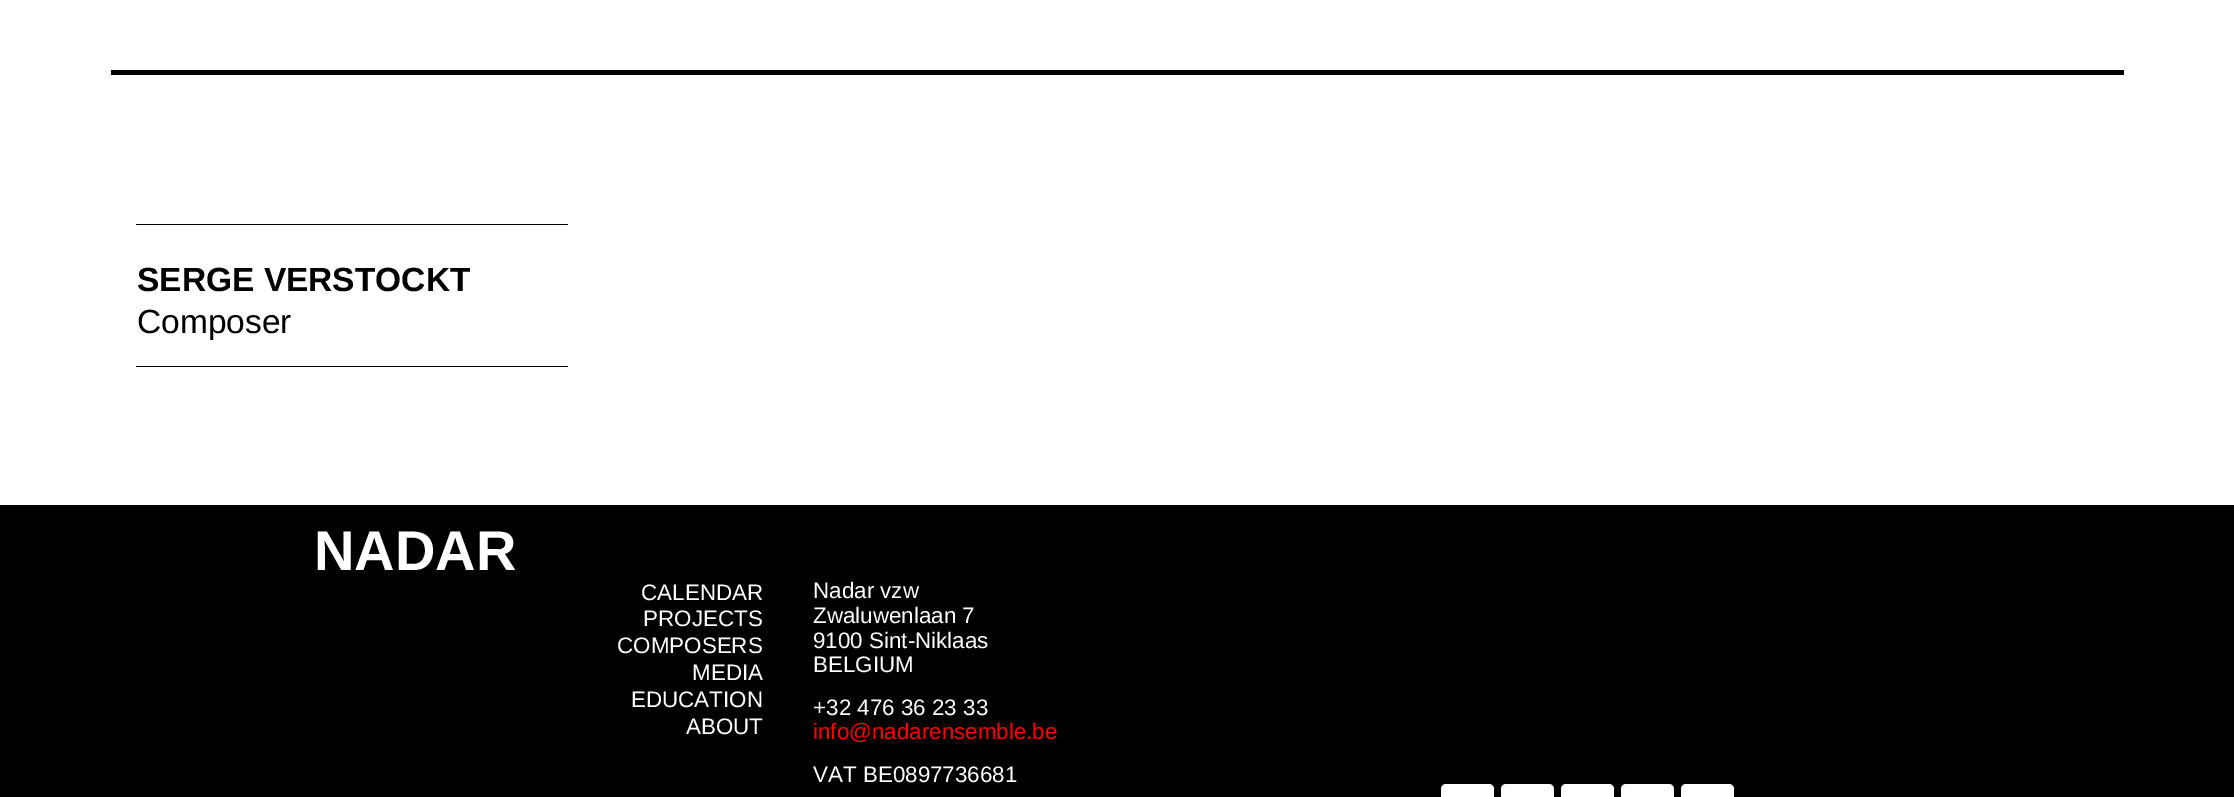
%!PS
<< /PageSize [2234 797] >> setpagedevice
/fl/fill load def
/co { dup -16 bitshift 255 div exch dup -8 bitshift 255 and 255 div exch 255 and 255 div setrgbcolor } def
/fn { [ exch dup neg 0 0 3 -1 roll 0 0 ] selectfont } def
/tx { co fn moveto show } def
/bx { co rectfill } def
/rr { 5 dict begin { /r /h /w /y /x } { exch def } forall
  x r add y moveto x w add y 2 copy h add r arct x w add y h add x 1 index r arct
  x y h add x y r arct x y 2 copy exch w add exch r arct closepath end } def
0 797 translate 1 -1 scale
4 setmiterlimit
0 0 2234 797 16#FFFFFF bx
111 70 2013 5 16#000000 bx
136 224 432 1 16#000000 bx
136 366 432 1 16#000000 bx
0 505 2234 292 16#000000 bx
16#FFFFFF co
1441 784 53 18 5 rr fl
1501 784 53 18 5 rr fl
1561 784 53 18 5 rr fl
1621 784 53 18 5 rr fl
1681 784 53 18 5 rr fl
(SERGE VERSTOCKT) 137 291 /LiberationSans-Bold 33.5 16#000000 tx
(Composer) 137 333 /LiberationSans-Regular 33.5 16#000000 tx
(NADAR) 314 570 /LiberationSans-Bold 56 16#FFFFFF tx
(CALENDAR) 641 600 /LiberationSans-Regular 22.4 16#FFFFFF tx
(PROJECTS) 643 626 /LiberationSans-Regular 22.4 16#FFFFFF tx
(COMPOSERS) 617 653 /LiberationSans-Regular 22.4 16#FFFFFF tx
(MEDIA) 692 680 /LiberationSans-Regular 22.4 16#FFFFFF tx
(EDUCATION) 631 707 /LiberationSans-Regular 22.4 16#FFFFFF tx
(ABOUT) 686 734 /LiberationSans-Regular 22.4 16#FFFFFF tx
(Nadar vzw) 813 598 /LiberationSans-Regular 22.4 16#FFFFFF tx
(Zwaluwenlaan 7) 813 623 /LiberationSans-Regular 22.4 16#FFFFFF tx
(9100 Sint-Niklaas) 813 648 /LiberationSans-Regular 22.4 16#FFFFFF tx
(BELGIUM) 813 672 /LiberationSans-Regular 22.4 16#FFFFFF tx
(+32 476 36 23 33) 813 715 /LiberationSans-Regular 22.4 16#FFFFFF tx
(info@nadarensemble.be) 813 739 /LiberationSans-Regular 22.4 16#FF0000 tx
(VAT BE0897736681) 813 782 /LiberationSans-Regular 22.4 16#FFFFFF tx
showpage
